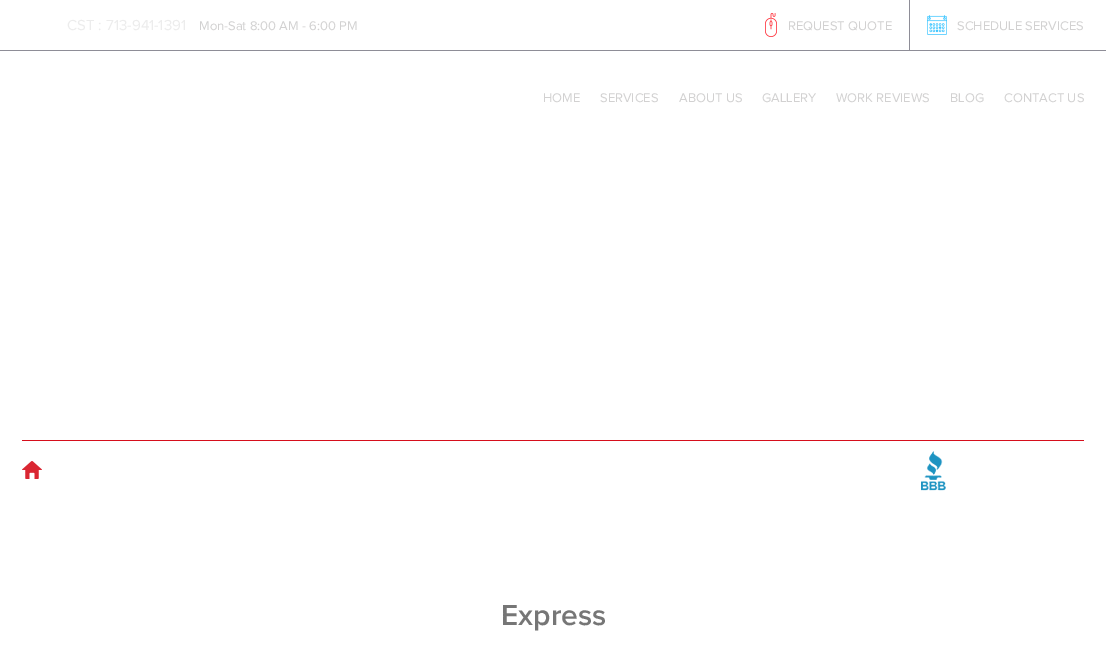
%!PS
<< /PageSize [1106 662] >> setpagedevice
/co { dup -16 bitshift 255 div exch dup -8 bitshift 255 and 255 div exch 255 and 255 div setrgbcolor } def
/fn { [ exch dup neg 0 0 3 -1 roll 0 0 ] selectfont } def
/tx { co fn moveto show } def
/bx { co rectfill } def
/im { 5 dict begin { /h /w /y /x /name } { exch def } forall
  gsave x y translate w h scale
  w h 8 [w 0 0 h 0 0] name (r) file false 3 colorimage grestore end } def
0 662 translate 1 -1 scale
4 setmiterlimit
0 0 1106 662 16#FFFFFF bx
0 50 1106 1 16#8E8D97 bx
(media/1.raw) 765 13 12 24 im
909 0 1 51 16#8E8D97 bx
(media/2.raw) 927 15 20 20 im
22 440 1062 1 16#D60E1C bx
(media/3.raw) 22 461 20 18 im
(media/4.raw) 921 451 25 40 im
(CST :) 67 30 /ProximaNova-Regular 15 16#ECECEC tx
(713-941-1391) 106 30 /ProximaNova-Regular 15 16#ECECEC tx
(Mon-Sat 8:00 AM - 6:00 PM) 199 30 /ProximaNova-Regular 13 16#D2D1D1 tx
(REQUEST QUOTE) 788 30 /ProximaNova-Regular 13 16#D2D1D1 tx
(SCHEDULE SERVICES) 957 30 /ProximaNova-Regular 13 16#D2D1D1 tx
(HOME) 543 102 /ProximaNova-Regular 13 16#D2D1D1 tx
(SERVICES) 600 102 /ProximaNova-Regular 13 16#D2D1D1 tx
(ABOUT US) 679 102 /ProximaNova-Regular 13 16#D2D1D1 tx
(GALLERY) 762 102 /ProximaNova-Regular 13 16#D2D1D1 tx
(WORK REVIEWS) 836 102 /ProximaNova-Regular 13 16#D2D1D1 tx
(BLOG) 950 102 /ProximaNova-Regular 13 16#D2D1D1 tx
(CONTACT US) 1004 102 /ProximaNova-Regular 13 16#D2D1D1 tx
(Express) 501 625 /ProximaNova-SemiBold 30 16#767676 tx
showpage
